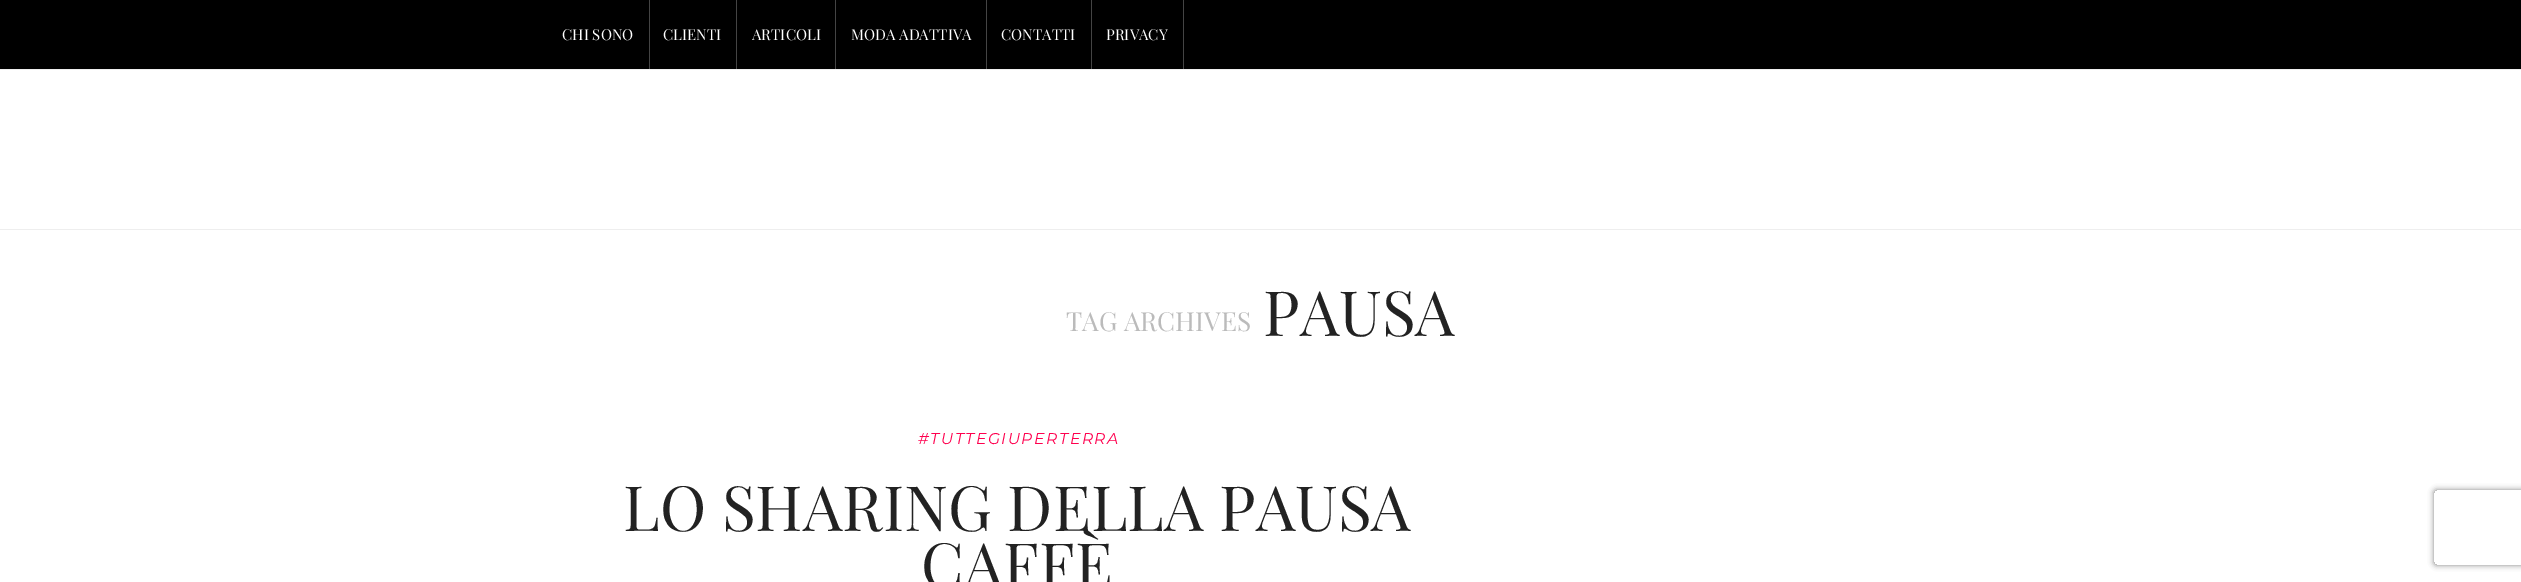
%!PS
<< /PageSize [2521 582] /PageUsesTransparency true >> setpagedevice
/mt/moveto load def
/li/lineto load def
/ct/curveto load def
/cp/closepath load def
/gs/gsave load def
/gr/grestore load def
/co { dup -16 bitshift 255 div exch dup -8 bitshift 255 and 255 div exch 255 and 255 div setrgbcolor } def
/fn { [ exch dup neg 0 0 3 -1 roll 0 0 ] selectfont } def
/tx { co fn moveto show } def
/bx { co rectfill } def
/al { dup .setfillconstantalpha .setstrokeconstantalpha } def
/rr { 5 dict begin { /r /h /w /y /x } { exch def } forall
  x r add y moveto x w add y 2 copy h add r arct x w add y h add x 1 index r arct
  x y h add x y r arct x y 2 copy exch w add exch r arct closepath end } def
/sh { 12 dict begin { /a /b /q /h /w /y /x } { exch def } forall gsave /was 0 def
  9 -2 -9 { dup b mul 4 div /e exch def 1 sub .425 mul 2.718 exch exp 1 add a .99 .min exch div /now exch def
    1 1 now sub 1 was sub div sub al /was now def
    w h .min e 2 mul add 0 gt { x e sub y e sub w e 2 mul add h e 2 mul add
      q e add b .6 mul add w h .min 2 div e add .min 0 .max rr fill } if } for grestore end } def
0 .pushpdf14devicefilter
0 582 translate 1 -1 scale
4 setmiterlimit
0 0 2521 582 16#FFFFFF bx
0 0 2521 69 16#000000 bx
0 69 2521 1 16#EEEEEE bx
649 0 1 69 16#444444 bx
736 0 1 69 16#444444 bx
835 0 1 69 16#444444 bx
986 0 1 69 16#444444 bx
1091 0 1 69 16#444444 bx
1183 0 1 69 16#444444 bx
0 229 2521 1 16#EEEEEE bx
gs
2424 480 mt 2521 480 li 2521 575 li 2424 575 li cp 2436.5 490 mt 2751.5 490 li 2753 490 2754 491 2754 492.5 ct 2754 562.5 li 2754 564 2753 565 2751.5 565 ct 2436.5 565 li 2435 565 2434 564 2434 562.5 ct 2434 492.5 li 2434 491 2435 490 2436.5 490 ct cp eoclip newpath
16#808080 co
2434 490 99 75 2.5 3 1 sh
gr
(CHI SONO) 562 40 /PlayfairDisplaySC-Regular 15 16#FFFFFF tx
(CLIENTI) 663 40 /PlayfairDisplaySC-Regular 15 16#FFFFFF tx
(ARTICOLI) 752 40 /PlayfairDisplaySC-Regular 15 16#FFFFFF tx
(MODA ADATTIVA) 851 40 /PlayfairDisplaySC-Regular 15 16#FFFFFF tx
(CONTATTI) 1001 40 /PlayfairDisplaySC-Regular 15 16#FFFFFF tx
(PRIVACY) 1106 40 /PlayfairDisplaySC-Regular 15 16#FFFFFF tx
(TAG ARCHIVES) 1066 331 /PlayfairDisplaySC-Regular 26.25 16#BBBBBB tx
(PAUSA) 1263 336 /PlayfairDisplaySC-Regular 62.5 16#222222 tx
/Montserrat-Italic 15.6 fn
16#FF004E co
918 444 mt 1.6 0 (#TUTTEGIUPERTERRA) ashow
(LO SHARING DELLA PAUSA) 623 531 /PlayfairDisplaySC-Regular 62.5 16#222222 tx
(CAFFÈ) 921 588 /PlayfairDisplaySC-Regular 62.5 16#222222 tx
.poppdf14devicefilter showpage
